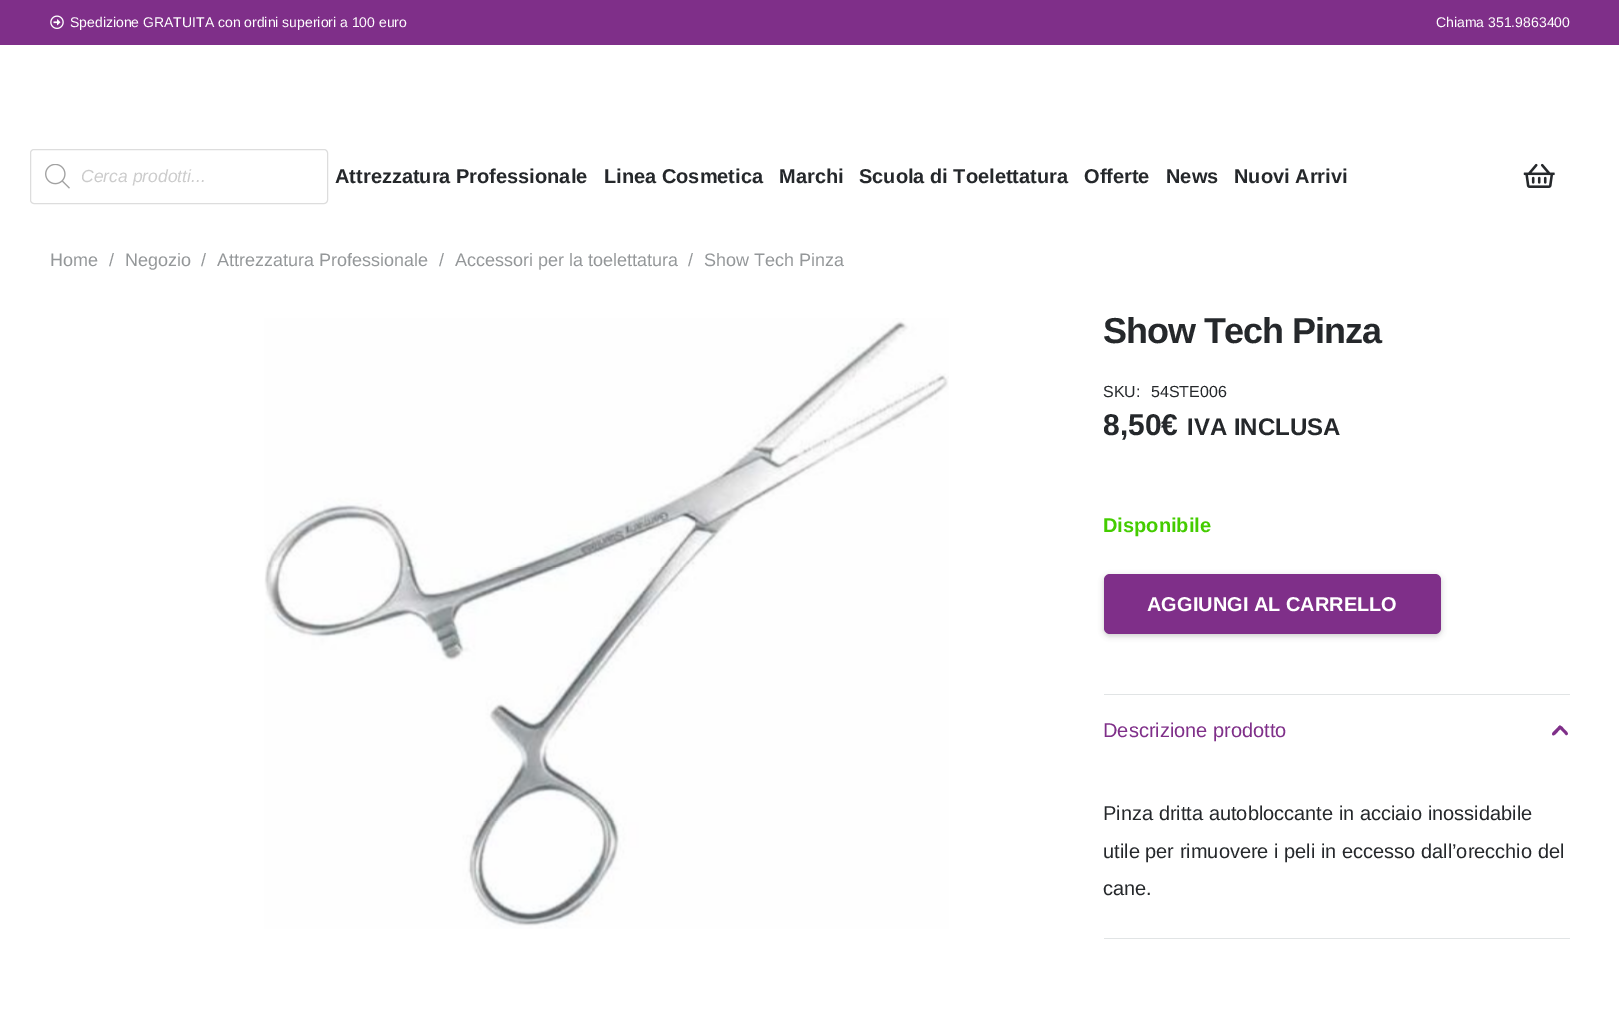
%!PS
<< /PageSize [1619 1011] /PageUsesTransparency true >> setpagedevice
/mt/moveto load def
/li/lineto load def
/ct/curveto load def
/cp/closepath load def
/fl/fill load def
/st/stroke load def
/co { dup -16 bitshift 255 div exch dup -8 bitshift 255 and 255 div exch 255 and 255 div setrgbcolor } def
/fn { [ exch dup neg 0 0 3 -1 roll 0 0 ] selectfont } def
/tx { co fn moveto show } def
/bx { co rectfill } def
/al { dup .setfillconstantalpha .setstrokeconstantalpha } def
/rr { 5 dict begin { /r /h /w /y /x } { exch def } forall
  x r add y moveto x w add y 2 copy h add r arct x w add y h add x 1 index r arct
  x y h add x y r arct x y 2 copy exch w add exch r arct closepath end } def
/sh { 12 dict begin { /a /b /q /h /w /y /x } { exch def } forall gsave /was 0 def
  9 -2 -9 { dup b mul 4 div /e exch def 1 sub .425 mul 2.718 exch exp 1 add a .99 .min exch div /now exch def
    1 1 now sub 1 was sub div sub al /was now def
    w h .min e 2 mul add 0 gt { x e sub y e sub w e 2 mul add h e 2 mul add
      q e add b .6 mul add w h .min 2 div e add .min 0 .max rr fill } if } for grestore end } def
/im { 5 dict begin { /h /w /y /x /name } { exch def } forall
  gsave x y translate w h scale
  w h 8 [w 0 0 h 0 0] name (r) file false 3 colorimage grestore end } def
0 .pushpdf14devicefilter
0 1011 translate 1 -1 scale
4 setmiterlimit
0 0 1619 1011 16#FFFFFF bx
0 0 1619 45 16#7F2F89 bx
(media/1.raw) 50 15 14 14 im
16#DDDDDD co
30.5 149.5 297 54 3.5 rr st
(media/2.raw) 45 164 25 25 im
(media/3.raw) 1523 163 32 25 im
(media/4.raw) 264 318 685 611 im
16#000000 co
1104 576 337 60 6 3 .2 sh
16#7F2F89 co
1104 574 337 60 6 rr fl
1104 694 466 1 16#E1E4E5 bx
1104 938 466 1 16#E1E4E5 bx
16#7F2F89 co
1567.5 734.5 mt 1566.5 736 1565.5 735 1564.5 733.5 ct 1560 729 li 1559 728 1558 727.5 1559 726 ct 1561 724.5 1563.5 728.5 1564.5 729.5 ct 1565 730 1569 733 1567.5 734.5 ct cp fl
1552.5 735 mt 1551.5 733.5 1552.5 733 1553.5 731.5 ct 1558 727 li 1559 726 1560 725 1561 726.5 ct 1562.5 728 1558.5 730.5 1558 731.5 ct 1557 732.5 1554 736.5 1552.5 735 ct cp fl
(Spedizione GRATUITA con ordini superiori a 100 euro) 70 27 /LiberationSans-Regular 14 16#FFFFFF tx
(Chiama 351.9863400) 1436 27 /LiberationSans-Regular 14 16#FFFFFF tx
(Cerca prodotti...) 81 182 /LiberationSans-Italic 17.5 16#CCCCCC tx
(Attrezzatura Professionale) 335 183 /LiberationSans-Bold 20 16#25282B tx
(Linea Cosmetica) 604 183 /LiberationSans-Bold 20 16#25282B tx
(Marchi) 779 183 /LiberationSans-Bold 20 16#25282B tx
(Scuola di Toelettatura) 859 183 /LiberationSans-Bold 20 16#25282B tx
(Offerte) 1084 183 /LiberationSans-Bold 20 16#25282B tx
(News) 1166 183 /LiberationSans-Bold 20 16#25282B tx
(Nuovi Arrivi) 1234 183 /LiberationSans-Bold 20 16#25282B tx
(Home) 50 266 /LiberationSans-Regular 18 16#949799 tx
(/) 109 266 /LiberationSans-Regular 18 16#949799 tx
(Negozio) 125 266 /LiberationSans-Regular 18 16#949799 tx
(/) 201 266 /LiberationSans-Regular 18 16#949799 tx
(Attrezzatura Professionale) 217 266 /LiberationSans-Regular 18 16#949799 tx
(/) 439 266 /LiberationSans-Regular 18 16#949799 tx
(Accessori per la toelettatura) 455 266 /LiberationSans-Regular 18 16#949799 tx
(/) 688 266 /LiberationSans-Regular 18 16#949799 tx
(Show Tech Pinza) 704 266 /LiberationSans-Regular 18 16#949799 tx
/LiberationSans-Bold 36 fn
16#25282B co
1103 343 mt -1.1 0 (Show Tech Pinza) ashow
(SKU:) 1103 397 /LiberationSans-Regular 16 16#25282B tx
(54STE006) 1151 397 /LiberationSans-Regular 16 16#25282B tx
(8,50€) 1103 435 /LiberationSans-Bold 30 16#25282B tx
(IVA INCLUSA) 1187 435 /LiberationSans-Bold 24 16#25282B tx
(Disponibile) 1103 532 /LiberationSans-Bold 20 16#44CC00 tx
(AGGIUNGI AL CARRELLO) 1147 611 /LiberationSans-Bold 20 16#FFFFFF tx
(Descrizione prodotto) 1103 737 /LiberationSans-Regular 20 16#7F2F89 tx
(Pinza dritta autobloccante in acciaio inossidabile) 1103 820 /LiberationSans-Regular 20 16#25282B tx
(utile per rimuovere i peli in eccesso dall’orecchio del) 1103 858 /LiberationSans-Regular 20 16#25282B tx
(cane.) 1103 895 /LiberationSans-Regular 20 16#25282B tx
.poppdf14devicefilter showpage
